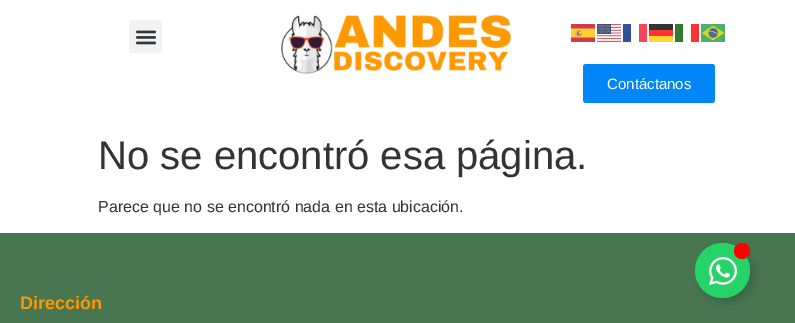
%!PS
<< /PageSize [795 323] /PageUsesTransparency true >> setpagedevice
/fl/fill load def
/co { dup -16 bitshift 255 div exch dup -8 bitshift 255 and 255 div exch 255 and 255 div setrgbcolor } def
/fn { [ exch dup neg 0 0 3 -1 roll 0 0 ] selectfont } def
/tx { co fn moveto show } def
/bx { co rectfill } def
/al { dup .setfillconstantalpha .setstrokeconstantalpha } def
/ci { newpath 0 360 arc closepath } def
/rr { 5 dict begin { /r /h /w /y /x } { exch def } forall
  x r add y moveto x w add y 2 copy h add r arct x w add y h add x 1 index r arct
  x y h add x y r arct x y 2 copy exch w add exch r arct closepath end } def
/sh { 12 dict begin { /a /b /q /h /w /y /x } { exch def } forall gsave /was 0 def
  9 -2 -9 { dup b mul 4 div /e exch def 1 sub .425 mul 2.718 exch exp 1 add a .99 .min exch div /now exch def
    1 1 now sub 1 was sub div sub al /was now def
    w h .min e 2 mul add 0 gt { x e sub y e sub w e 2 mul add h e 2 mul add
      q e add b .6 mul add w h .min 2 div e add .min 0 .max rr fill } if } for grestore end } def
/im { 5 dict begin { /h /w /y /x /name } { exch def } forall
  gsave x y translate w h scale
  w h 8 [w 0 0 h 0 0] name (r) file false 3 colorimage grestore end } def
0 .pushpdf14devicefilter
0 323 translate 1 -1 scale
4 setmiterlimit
0 0 795 323 16#FFFFFF bx
16#F2F2F2 co
129 20 33 33 3 rr fl
(media/1.raw) 135 30 22 15 im
(media/2.raw) 281 14 230 60 im
(media/3.raw) 571 24 24 18 im
(media/4.raw) 597 24 24 18 im
623 24 8 18 16#335199 bx
639 24 8 18 16#F54659 bx
649 24 24 6 16#333333 bx
675 24 8 18 16#337933 bx
691 24 8 18 16#FD3333 bx
(media/5.raw) 701 24 24 18 im
649 30 24 6 16#FF3333 bx
649 36 24 6 16#FFD633 bx
16#0186F7 co
583 64 132 39 3 rr fl
0 233 795 90 16#477651 bx
16#000000 co
699 247 55 55 27.5 5 .15 sh
16#25D366 co
722.5 270.5 27.5 ci fl
(media/6.raw) 709 257 28 28 im
16#FF0000 co
742 251 8 ci fl
(Contáctanos) 607 89 /LiberationSans-Regular 15 16#FFFFFF tx
(No se encontró esa página.) 98 169 /LiberationSans-Regular 40 16#333333 tx
(Parece que no se encontró nada en esta ubicación.) 98 212 /LiberationSans-Regular 16 16#333333 tx
(Dirección) 20 309 /LiberationSans-Bold 18 16#FF9900 tx
.poppdf14devicefilter showpage
